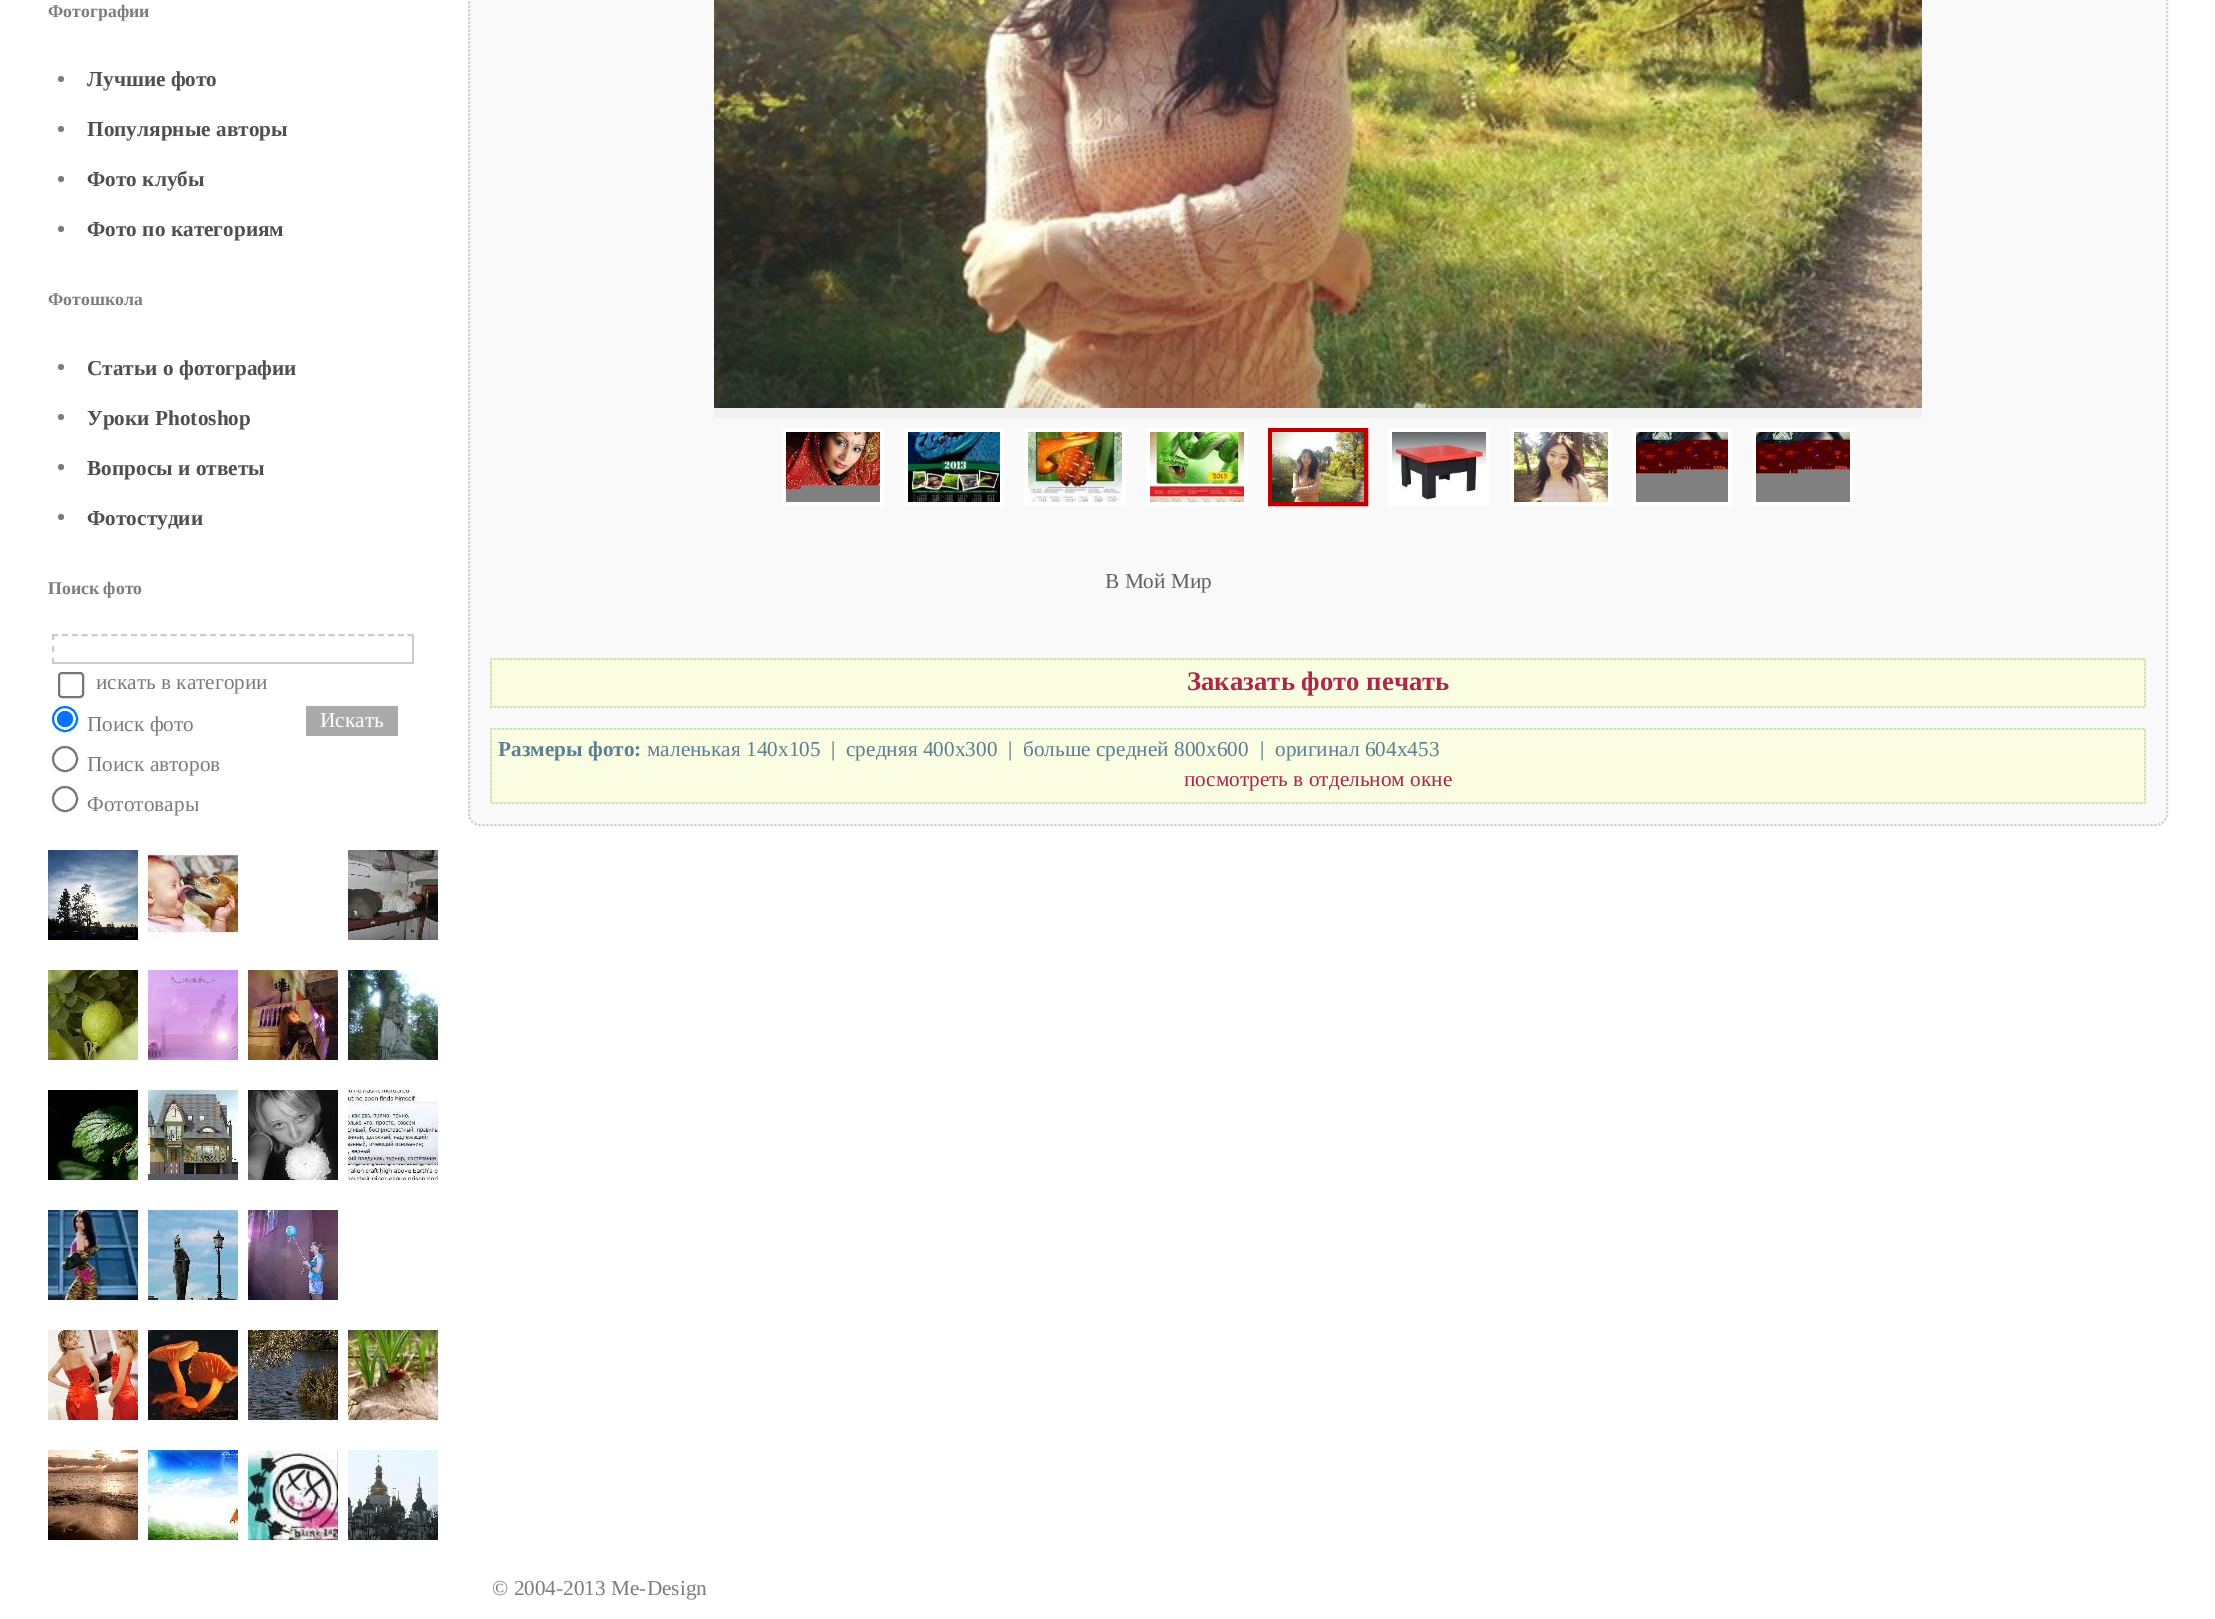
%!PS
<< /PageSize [2215 1619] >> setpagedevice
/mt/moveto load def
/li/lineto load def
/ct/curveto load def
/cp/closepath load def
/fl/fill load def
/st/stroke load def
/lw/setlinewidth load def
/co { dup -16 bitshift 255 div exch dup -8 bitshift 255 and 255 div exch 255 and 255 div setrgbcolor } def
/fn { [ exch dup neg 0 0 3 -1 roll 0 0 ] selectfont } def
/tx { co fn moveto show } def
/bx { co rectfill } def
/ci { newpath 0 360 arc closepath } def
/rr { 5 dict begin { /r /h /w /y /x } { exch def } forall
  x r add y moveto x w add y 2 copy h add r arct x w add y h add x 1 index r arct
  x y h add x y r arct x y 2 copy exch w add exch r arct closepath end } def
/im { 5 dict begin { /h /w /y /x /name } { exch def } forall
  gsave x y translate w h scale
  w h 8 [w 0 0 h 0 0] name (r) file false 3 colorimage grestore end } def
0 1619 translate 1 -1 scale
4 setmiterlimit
0 0 2215 1619 16#FFFFFF bx
16#7D7D7D co
61 79 3 ci fl
61 129 3 ci fl
61 179 3 ci fl
61 229 3 ci fl
61 367 3 ci fl
61 417 3 ci fl
61 467 3 ci fl
61 517 3 ci fl
16#CCCCCC co
2 lw
[6 3.88] 0 setdash
52 635 mt 414 635 li st
412 634 2 30 16#CCCCCC bx
52 662 362 2 16#CCCCCC bx
[] 0 setdash
53 634 mt 53 640 li 53 646 mt 53 652 li 53 658 mt 53 664 li st
16#767676 co
59 673 24 24 3 rr st
16#0075FF co
65 719 12 ci st
65 719 8 ci fl
16#767676 co
65 759 12 ci st
65 799 12 ci st
306 706 92 30 16#AAAAAA bx
(media/1.raw) 48 850 90 90 im
(media/2.raw) 148 850 90 90 im
(media/3.raw) 348 850 90 90 im
(media/4.raw) 48 970 90 90 im
(media/5.raw) 148 970 90 90 im
(media/6.raw) 248 970 90 90 im
(media/7.raw) 348 970 90 90 im
(media/8.raw) 48 1090 90 90 im
(media/9.raw) 148 1090 90 90 im
(media/10.raw) 248 1090 90 90 im
(media/11.raw) 348 1090 90 90 im
(media/12.raw) 48 1210 90 90 im
(media/13.raw) 148 1210 90 90 im
(media/14.raw) 248 1210 90 90 im
(media/15.raw) 48 1330 90 90 im
(media/16.raw) 148 1330 90 90 im
(media/17.raw) 248 1330 90 90 im
(media/18.raw) 348 1330 90 90 im
(media/19.raw) 48 1450 90 90 im
(media/20.raw) 148 1450 90 90 im
(media/21.raw) 248 1450 90 90 im
(media/22.raw) 348 1450 90 90 im
16#F9F9F9 co
468 -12 1700 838 12 rr fl
16#D0D0D0 co
[2 2] 0 setdash
480 -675 mt 2156 -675 li 2162 -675 2167 -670 2167 -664 ct 2167 814 li 2167 820 2162 825 2156 825 ct 480 825 li 474 825 469 820 469 814 ct 469 -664 li 469 -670 474 -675 480 -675 ct cp st
714 408 1208 10 16#F0F0F0 bx
(media/23.raw) 714 0 1208 408 im
16#FFFFFF co
4 lw
[] 0 setdash
784 430 98 74 rectstroke
(media/24.raw) 786 432 94 70 im
906 430 96 74 rectstroke
(media/25.raw) 908 432 92 70 im
1026 430 98 74 rectstroke
(media/26.raw) 1028 432 94 70 im
1148 430 98 74 rectstroke
(media/27.raw) 1150 432 94 70 im
16#C00000 co
1270 430 96 74 rectstroke
(media/28.raw) 1272 432 92 70 im
16#FFFFFF co
1390 430 98 74 rectstroke
(media/29.raw) 1392 432 94 70 im
1512 430 98 74 rectstroke
(media/30.raw) 1514 432 94 70 im
1634 430 96 74 rectstroke
(media/31.raw) 1636 432 92 70 im
1754 430 98 74 rectstroke
(media/32.raw) 1756 432 94 70 im
(media/33.raw) 490 658 1656 50 im
492 660 1652 46 16#FAFDE2 bx
(media/34.raw) 490 728 1656 76 im
492 730 1652 72 16#FAFDE2 bx
(Фотографии) 48 17 /LiberationSerif-Bold 17.75 16#7D7D7D tx
(Лучшие фото) 87 86 /LiberationSerif-Bold 21.3 16#4F4F4F tx
(Популярные авторы) 87 136 /LiberationSerif-Bold 21.3 16#4F4F4F tx
(Фото клубы) 87 186 /LiberationSerif-Bold 21.3 16#4F4F4F tx
(Фото по категориям) 87 236 /LiberationSerif-Bold 21.3 16#4F4F4F tx
(Фотошкола) 48 305 /LiberationSerif-Bold 17.75 16#7D7D7D tx
(Статьи о фотографии) 87 375 /LiberationSerif-Bold 21.3 16#4F4F4F tx
(Уроки Photoshop) 87 425 /LiberationSerif-Bold 21.3 16#4F4F4F tx
(Вопросы и ответы) 87 475 /LiberationSerif-Bold 21.3 16#4F4F4F tx
(Фотостудии) 87 525 /LiberationSerif-Bold 21.3 16#4F4F4F tx
(Поиск фото) 48 594 /LiberationSerif-Bold 17.75 16#7D7D7D tx
(искать в категории) 96 689 /LiberationSerif-Regular 21.3 16#7D7D7D tx
(Поиск фото) 87 731 /LiberationSerif-Regular 21.3 16#7D7D7D tx
(Поиск авторов) 87 771 /LiberationSerif-Regular 21.3 16#7D7D7D tx
(Фототовары) 87 811 /LiberationSerif-Regular 21.3 16#7D7D7D tx
(Искать) 320 727 /LiberationSerif-Regular 21.3 16#FFFFFF tx
(В Мой Мир) 1105 588 /LiberationSerif-Regular 21.3 16#626262 tx
(Заказать фото печать) 1187 690 /LiberationSerif-Bold 26.75 16#AC2848 tx
(Размеры фото:) 498 756 /LiberationSerif-Bold 21.3 16#5B8092 tx
(маленькая 140x105) 647 756 /LiberationSerif-Regular 21.3 16#5B8092 tx
(|) 831 756 /LiberationSerif-Regular 21.3 16#5B8092 tx
(средняя 400x300) 846 756 /LiberationSerif-Regular 21.3 16#5B8092 tx
(|) 1008 756 /LiberationSerif-Regular 21.3 16#5B8092 tx
(больше средней 800x600) 1023 756 /LiberationSerif-Regular 21.3 16#5B8092 tx
(|) 1260 756 /LiberationSerif-Regular 21.3 16#5B8092 tx
(оригинал 604x453) 1275 756 /LiberationSerif-Regular 21.3 16#5B8092 tx
(посмотреть в отдельном окне) 1184 786 /LiberationSerif-Regular 21.3 16#AC2848 tx
(© 2004-2013 Me-Design) 492 1595 /LiberationSerif-Regular 21.3 16#7D7D7D tx
showpage
